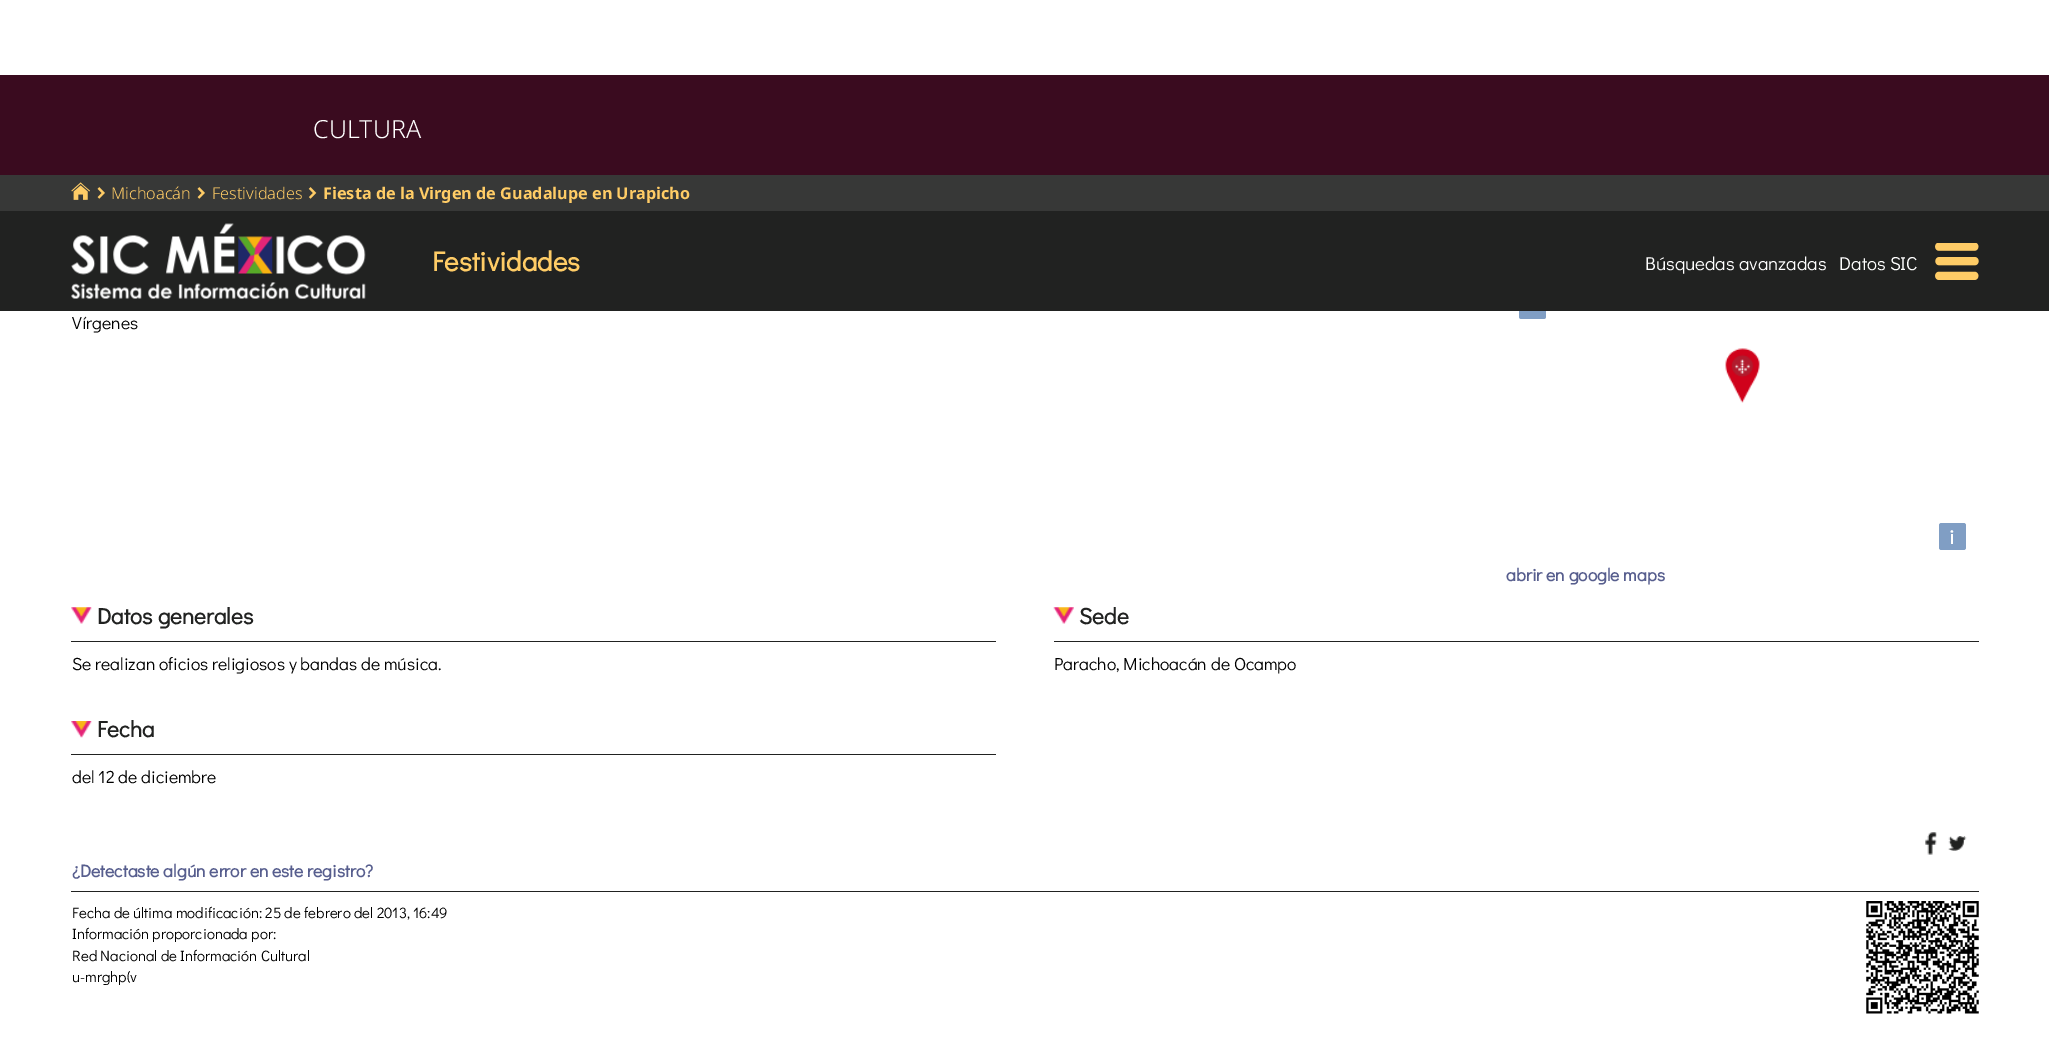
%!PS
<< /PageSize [2049 1051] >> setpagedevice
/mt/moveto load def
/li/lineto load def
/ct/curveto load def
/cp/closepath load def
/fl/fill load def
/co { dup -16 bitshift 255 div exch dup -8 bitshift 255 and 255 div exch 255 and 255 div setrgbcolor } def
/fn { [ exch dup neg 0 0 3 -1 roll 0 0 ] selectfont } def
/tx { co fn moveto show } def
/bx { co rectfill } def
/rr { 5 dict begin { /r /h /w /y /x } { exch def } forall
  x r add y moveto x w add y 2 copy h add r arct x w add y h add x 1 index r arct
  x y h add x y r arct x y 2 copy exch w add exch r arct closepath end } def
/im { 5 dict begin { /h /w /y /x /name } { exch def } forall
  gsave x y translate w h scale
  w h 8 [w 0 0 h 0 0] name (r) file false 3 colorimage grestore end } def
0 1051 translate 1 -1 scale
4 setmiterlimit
0 0 2049 1051 16#FFFFFF bx
0 75 2049 100 16#3A0B1F bx
0 175 2049 36 16#373837 bx
(media/1.raw) 71 182 19 18 im
(media/2.raw) 97 187 8 12 im
(media/2.raw) 197 187 8 12 im
(media/3.raw) 308 187 9 12 im
16#809EC4 co
1519 291 mt 1546 291 li 1546 316.5 li 1546 318 1545 319 1543.5 319 ct 1521.5 319 li 1520 319 1519 318 1519 316.5 ct cp fl
0 211 2049 100 16#212221 bx
(media/4.raw) 71 223 295 76 im
(media/5.raw) 1935 243 44 37 im
(media/6.raw) 1725 348 35 55 im
16#809EC4 co
1939 523 27 27 2.5 rr fl
(media/7.raw) 71 607 21 17 im
71 641 925 1 16#212221 bx
(media/8.raw) 1053 607 21 17 im
1054 641 925 1 16#212221 bx
(media/9.raw) 71 721 21 17 im
71 754 925 1 16#212221 bx
(media/10.raw) 1925 832 12 23 im
(media/11.raw) 1948 836 19 15 im
71 891 1908 1 16#212221 bx
(media/12.raw) 1866 901 113 113 im
(CULTURA) 313 138 /NotoSans-Light 25 16#FFFFFF tx
(Michoacán) 111 199 /NotoSans-Light 16.25 16#FFCC66 tx
(Festividades) 212 199 /NotoSans-Light 16.25 16#FFCC66 tx
(Fiesta de la Virgen de Guadalupe en Urapicho) 323 199 /NotoSans-Bold 16.25 16#FFCC66 tx
(Festividades) 432 271 /DidactGothic-Bold 27.5 16#FFCC66 tx
(Búsquedas avanzadas) 1645 270 /DidactGothic-Regular 18.75 16#FFFFFF tx
(Datos SIC) 1839 270 /DidactGothic-Regular 18.75 16#FFFFFF tx
(Vírgenes) 72 329 /DidactGothic-Regular 17.5 16#000000 tx
/DidactGothic-Bold 20 fn
16#FFFFFF co
1949 544 mt 1 0 (i) ashow
(abrir en google maps) 1506 581 /DidactGothic-Bold 17.5 16#575E8E tx
(Datos generales) 97 624 /DidactGothic-Bold 22.5 16#212221 tx
(Se realizan oficios religiosos y bandas de música.) 72 670 /DidactGothic-Regular 17.5 16#000000 tx
(Sede) 1079 624 /DidactGothic-Bold 22.5 16#212221 tx
(Paracho, Michoacán de Ocampo) 1054 670 /DidactGothic-Regular 17.5 16#000000 tx
(Fecha) 97 737 /DidactGothic-Bold 22.5 16#212221 tx
(del 12 de diciembre) 72 783 /DidactGothic-Regular 17.5 16#000000 tx
(¿Detectaste algún error en este registro?) 72 877 /DidactGothic-Bold 17.5 16#575E8E tx
(Fecha de última modificación: 25 de febrero del 2013, 16:49) 72 918 /DidactGothic-Regular 15 16#000000 tx
(Información proporcionada por:) 72 939 /DidactGothic-Regular 15 16#000000 tx
(Red Nacional de Información Cultural) 72 961 /DidactGothic-Regular 15 16#000000 tx
(u-mrghp\(v) 72 982 /DidactGothic-Regular 15 16#000000 tx
showpage
